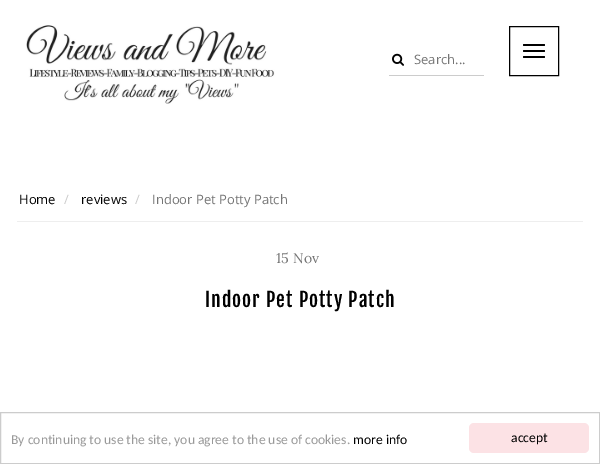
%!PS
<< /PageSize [600 464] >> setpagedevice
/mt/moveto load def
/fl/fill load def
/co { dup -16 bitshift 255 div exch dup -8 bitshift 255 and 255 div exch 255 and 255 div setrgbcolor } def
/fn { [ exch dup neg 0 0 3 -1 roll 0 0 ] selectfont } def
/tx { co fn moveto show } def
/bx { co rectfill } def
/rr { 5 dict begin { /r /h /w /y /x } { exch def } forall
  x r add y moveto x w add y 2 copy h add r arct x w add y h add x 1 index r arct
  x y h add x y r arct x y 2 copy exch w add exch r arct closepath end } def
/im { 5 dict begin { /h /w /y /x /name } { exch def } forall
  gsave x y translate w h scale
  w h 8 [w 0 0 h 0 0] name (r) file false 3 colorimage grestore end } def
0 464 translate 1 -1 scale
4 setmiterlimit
0 0 600 464 16#FFFFFF bx
(media/1.raw) 26 25 249 79 im
389 75 95 1 16#CCCCCC bx
(media/2.raw) 392 53 12 13 im
16#000000 co
509.5 26.5 49 49 rectstroke
523 44 22 2 1 rr fl
523 50 22 2 1 rr fl
523 56 22 2 1 rr fl
17 221 566 1 16#EEEEEE bx
16#CCCCCC co
.5 412.5 599 51 rectstroke
16#FCE2E5 co
469 423 120 30 5 rr fl
(Search...) 414 64 /OpenSans-Regular 13 16#757575 tx
(Home) 19 204 /OpenSans-Regular 13 16#000000 tx
(/) 64 204 /OpenSans-Regular 13 16#CCCCCC tx
(reviews) 81 204 /OpenSans-Regular 13 16#000000 tx
(/) 135 204 /OpenSans-Regular 13 16#CCCCCC tx
(Indoor Pet Potty Patch) 152 204 /OpenSans-Regular 13 16#757575 tx
(15) 276 263 /Lora-Regular 14 16#757575 tx
(Nov) 293 263 /Lora-Regular 14 16#757575 tx
/FjallaOne-Regular 19.5 fn
16#000000 co
205 307 mt 1 0 (Indoor Pet Potty Patch) ashow
(By continuing to use the site, you agree to the use of cookies.) 11 444 /Carlito-Regular 13.6 16#999999 tx
(more info) 353 444 /Carlito-Regular 13.6 16#000000 tx
(accept) 511 442 /Carlito-Regular 13.6 16#000000 tx
showpage
